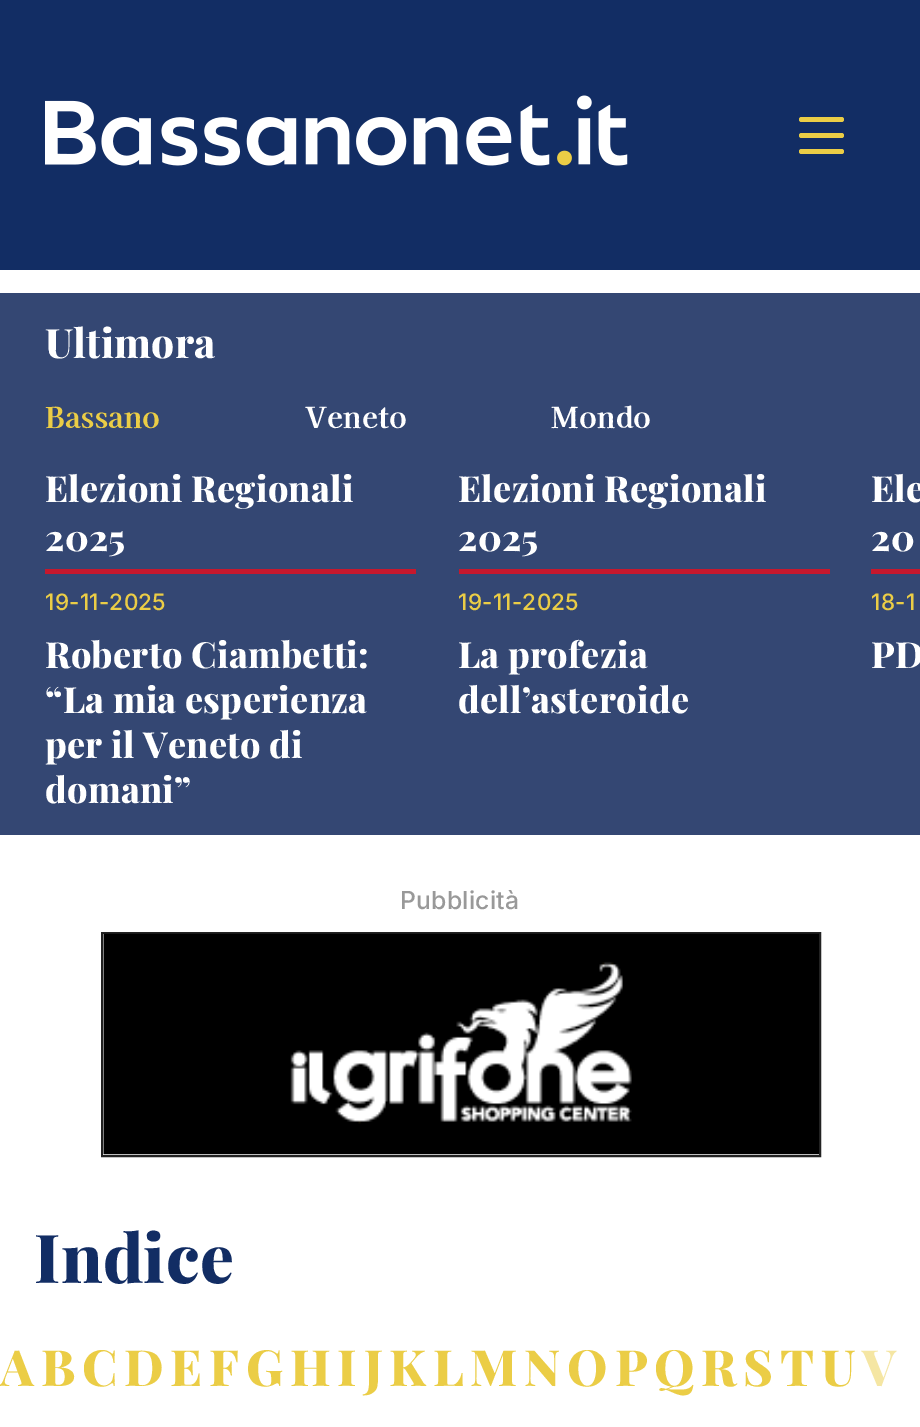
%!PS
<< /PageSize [920 1427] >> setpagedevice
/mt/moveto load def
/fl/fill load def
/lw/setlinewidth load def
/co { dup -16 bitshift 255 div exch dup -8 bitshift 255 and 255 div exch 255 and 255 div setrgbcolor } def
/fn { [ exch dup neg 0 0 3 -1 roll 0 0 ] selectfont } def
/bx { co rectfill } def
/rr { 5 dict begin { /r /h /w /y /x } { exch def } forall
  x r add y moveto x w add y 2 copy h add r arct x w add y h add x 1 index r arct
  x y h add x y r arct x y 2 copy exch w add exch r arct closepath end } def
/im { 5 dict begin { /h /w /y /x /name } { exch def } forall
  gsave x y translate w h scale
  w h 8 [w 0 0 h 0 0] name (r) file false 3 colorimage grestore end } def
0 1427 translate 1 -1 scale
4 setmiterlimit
0 0 920 1427 16#FFFFFF bx
0 0 920 270 16#122D64 bx
(media/1.raw) 45 95 583 71 im
16#EBCD46 co
799 117 45 5 2.5 rr fl
799 133 45 5 2.5 rr fl
799 149 45 5 2.5 rr fl
0 293 920 542 16#344773 bx
45 569 371 5 16#C6182D bx
459 569 371 5 16#C6182D bx
871 569 49 5 16#C6182D bx
16#222222 co
2 lw
102 933 718 223 rectstroke
(media/2.raw) 103 933 716 222 im
/PlayfairDisplay-ExtraBold 40.5 fn
16#FFFFFF co
45 358 mt .25 0 (Ultimora) ashow
/KaiseiTokumin-ExtraBold 29 fn
16#EBCD46 co
45 428 mt .25 0 (Bassano) ashow
16#FFFFFF co
305 428 mt .25 0 (Veneto) ashow
551 428 mt .25 0 (Mondo) ashow
/PlayfairDisplay-ExtraBold 36 fn
45 502 mt .25 0 (Elezioni Regionali) ashow
45 551 mt .25 0 (2025) ashow
/Inter-Medium 22.5 fn
16#EBCD46 co
45 610 mt .25 0 (19-11-2025) ashow
/PlayfairDisplay-ExtraBold 36 fn
16#FFFFFF co
45 668 mt .25 0 (Roberto Ciambetti:) ashow
45 713 mt .25 0 (“La mia esperienza) ashow
45 758 mt .25 0 (per il Veneto di) ashow
45 803 mt .25 0 (domani”) ashow
458 502 mt .25 0 (Elezioni Regionali) ashow
458 551 mt .25 0 (2025) ashow
/Inter-Medium 22.5 fn
16#EBCD46 co
458 610 mt .25 0 (19-11-2025) ashow
/PlayfairDisplay-ExtraBold 36 fn
16#FFFFFF co
458 668 mt .25 0 (La profezia) ashow
458 713 mt .25 0 (dell’asteroide) ashow
871 502 mt .25 0 (Ele) ashow
871 551 mt .25 0 (20) ashow
/Inter-Medium 22.5 fn
16#EBCD46 co
871 610 mt .25 0 (18-1) ashow
/PlayfairDisplay-ExtraBold 36 fn
16#FFFFFF co
871 668 mt .25 0 (PD) ashow
/Inter-Medium 24.75 fn
16#999999 co
400 909 mt .25 0 (Pubblicità) ashow
/PlayfairDisplay-ExtraBold 67.5 fn
16#122D64 co
34 1283 mt .25 0 (Indice) ashow
/PlayfairDisplay-ExtraBold 50 fn
16#EBCD46 co
0 1386 mt .25 0 (A) ashow
41 1386 mt .25 0 (B) ashow
82 1386 mt .25 0 (C) ashow
124 1386 mt .25 0 (D) ashow
170 1386 mt .25 0 (E) ashow
209 1386 mt .25 0 (F) ashow
246 1386 mt .25 0 (G) ashow
290 1386 mt .25 0 (H) ashow
337 1386 mt .25 0 (I) ashow
364 1386 mt .25 0 (J) ashow
389 1386 mt .25 0 (K) ashow
433 1386 mt .25 0 (L) ashow
470 1386 mt .25 0 (M) ashow
524 1386 mt .25 0 (N) ashow
567 1386 mt .25 0 (O) ashow
615 1386 mt .25 0 (P) ashow
654 1386 mt .25 0 (Q) ashow
701 1386 mt .25 0 (R) ashow
743 1386 mt .25 0 (S) ashow
780 1386 mt .25 0 (T) ashow
821 1386 mt .25 0 (U) ashow
16#F5E6A3 co
862 1386 mt .25 0 (V) ashow
showpage
